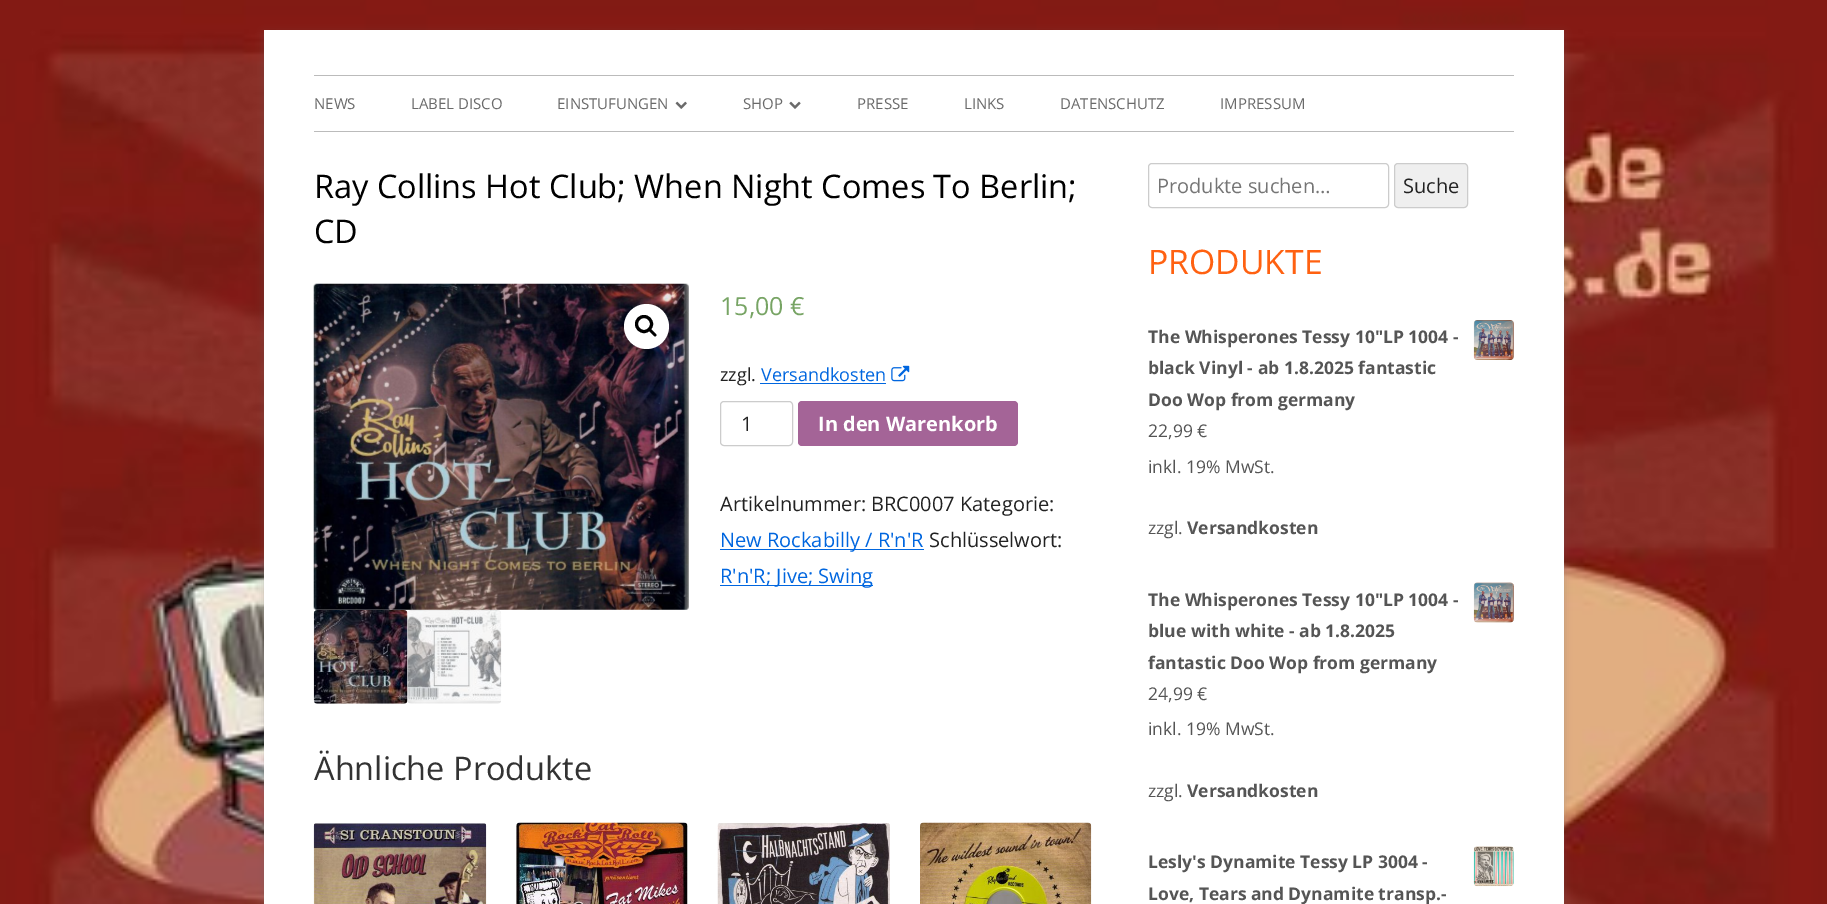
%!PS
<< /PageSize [1827 904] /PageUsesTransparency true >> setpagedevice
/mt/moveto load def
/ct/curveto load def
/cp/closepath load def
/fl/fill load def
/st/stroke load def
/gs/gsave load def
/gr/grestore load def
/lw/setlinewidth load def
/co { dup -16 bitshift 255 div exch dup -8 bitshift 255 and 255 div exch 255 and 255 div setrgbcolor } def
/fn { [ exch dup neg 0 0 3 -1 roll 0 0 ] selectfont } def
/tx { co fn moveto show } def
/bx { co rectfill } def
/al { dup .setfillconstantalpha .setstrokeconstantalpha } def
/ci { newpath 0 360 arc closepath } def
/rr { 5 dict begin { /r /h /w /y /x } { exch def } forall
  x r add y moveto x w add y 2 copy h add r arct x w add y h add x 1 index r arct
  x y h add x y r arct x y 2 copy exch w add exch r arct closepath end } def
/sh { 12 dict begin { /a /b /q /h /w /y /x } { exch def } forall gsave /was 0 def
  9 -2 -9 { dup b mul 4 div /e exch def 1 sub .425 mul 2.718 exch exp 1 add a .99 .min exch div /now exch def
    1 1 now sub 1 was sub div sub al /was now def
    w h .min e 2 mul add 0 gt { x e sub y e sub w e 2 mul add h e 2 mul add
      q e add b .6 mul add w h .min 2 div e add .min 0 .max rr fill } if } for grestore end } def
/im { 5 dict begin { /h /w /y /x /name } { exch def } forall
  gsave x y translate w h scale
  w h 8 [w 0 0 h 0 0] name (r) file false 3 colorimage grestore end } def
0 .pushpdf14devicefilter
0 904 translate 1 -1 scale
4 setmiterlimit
0 0 1827 904 16#FFFFFF bx
(media/1.raw) 0 0 1827 904 im
16#646464 co
264 33 1300 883 0 4 .3 sh
264 30 1300 874 16#FFFFFF bx
314 75 1200 1 16#BBBBBB bx
314 131 1200 1 16#BBBBBB bx
(media/2.raw) 675 101 12 8 im
(media/3.raw) 789 101 12 8 im
(media/4.raw) 313 283 376 327 im
16#FFFFFF co
646.5 326.5 22.5 ci fl
16#000000 co
3 lw
644 324 7.5 ci st
649 329 mt 650.5 327.5 652.5 331 653.5 331.5 ct 654 332.5 657.5 334.5 656 336 ct 654.5 337.5 652.5 334 651.5 333.5 ct 651 332.5 647.5 330.5 649 329 ct cp fl
(media/5.raw) 313 610 95 94 im
(media/6.raw) 407 610 95 94 im
760 383 126 1 16#0066DF bx
(media/7.raw) 891 365 19 17 im
16#CCCCCC co
1 lw
720.5 401.5 72 44 3.5 rr st
16#A46497 co
798 401 220 45 4 rr fl
720 549 204 1 16#0066DF bx
720 585 153 1 16#0066DF bx
(media/8.raw) 313 823 174 81 im
(media/9.raw) 516 822 172 82 im
(media/10.raw) 717 823 173 81 im
(media/11.raw) 920 822 172 82 im
16#CCCCCC co
1148.5 163.5 240 44 3.5 rr st
16#EFEFEF co
1394.5 163.5 73 44 3.5 rr gs fl gr
16#CCCCCC co
st
(media/12.raw) 1473 320 41 40 im
(media/13.raw) 1473 582 41 41 im
(media/14.raw) 1473 846 41 41 im
(NEWS) 314 109 /OpenSans-Regular 15 16#6A6A6A tx
(LABEL DISCO) 411 109 /OpenSans-Regular 15 16#6A6A6A tx
(EINSTUFUNGEN) 557 109 /OpenSans-Regular 15 16#6A6A6A tx
(SHOP) 743 109 /OpenSans-Regular 15 16#6A6A6A tx
(PRESSE) 857 109 /OpenSans-Regular 15 16#6A6A6A tx
(LINKS) 964 109 /OpenSans-Regular 15 16#6A6A6A tx
(DATENSCHUTZ) 1060 109 /OpenSans-Regular 15 16#6A6A6A tx
(IMPRESSUM) 1220 109 /OpenSans-Regular 15 16#6A6A6A tx
(Ray Collins Hot Club; When Night Comes To Berlin;) 314 198 /OpenSans-Regular 32.5 16#000000 tx
(CD) 314 243 /OpenSans-Regular 32.5 16#000000 tx
(15,00 €) 720 315 /OpenSans-Regular 25 16#77A464 tx
(zzgl.) 720 381 /OpenSans-Regular 18 16#222222 tx
(Versandkosten) 761 381 /OpenSans-Regular 18 16#0066DF tx
(1) 741 431 /OpenSans-Regular 20 16#222222 tx
(In den Warenkorb) 818 431 /OpenSans-Bold 20 16#FFFFFF tx
(Artikelnummer: BRC0007 Kategorie:) 720 511 /OpenSans-Regular 20 16#222222 tx
(New Rockabilly / R'n'R) 720 547 /OpenSans-Regular 20 16#0066DF tx
(Schlüsselwort:) 929 547 /OpenSans-Regular 20 16#222222 tx
(R'n'R; Jive; Swing) 720 583 /OpenSans-Regular 20 16#0066DF tx
(Ähnliche Produkte) 314 780 /OpenSans-Regular 32.5 16#333333 tx
(Produkte suchen…) 1157 193 /OpenSans-Regular 20 16#757575 tx
(Suche) 1403 193 /OpenSans-Regular 20 16#222222 tx
(PRODUKTE) 1148 274 /OpenSans-Regular 33.75 16#FF6111 tx
(The Whisperones Tessy 10"LP 1004 -) 1148 343 /OpenSans-Bold 17.5 16#555555 tx
(black Vinyl - ab 1.8.2025 fantastic) 1148 374 /OpenSans-Bold 17.5 16#555555 tx
(Doo Wop from germany) 1148 406 /OpenSans-Bold 17.5 16#555555 tx
(22,99 €) 1148 437 /OpenSans-Regular 17.5 16#555555 tx
(inkl. 19% MwSt.) 1148 473 /OpenSans-Regular 17.5 16#555555 tx
(zzgl.) 1148 534 /OpenSans-Regular 17.5 16#555555 tx
(Versandkosten) 1187 534 /OpenSans-Bold 17.5 16#555555 tx
(The Whisperones Tessy 10"LP 1004 -) 1148 606 /OpenSans-Bold 17.5 16#555555 tx
(blue with white - ab 1.8.2025) 1148 637 /OpenSans-Bold 17.5 16#555555 tx
(fantastic Doo Wop from germany) 1148 669 /OpenSans-Bold 17.5 16#555555 tx
(24,99 €) 1148 700 /OpenSans-Regular 17.5 16#555555 tx
(inkl. 19% MwSt.) 1148 735 /OpenSans-Regular 17.5 16#555555 tx
(zzgl.) 1148 797 /OpenSans-Regular 17.5 16#555555 tx
(Versandkosten) 1187 797 /OpenSans-Bold 17.5 16#555555 tx
(Lesly's Dynamite Tessy LP 3004 -) 1148 868 /OpenSans-Bold 17.5 16#555555 tx
(Love, Tears and Dynamite transp.-) 1148 900 /OpenSans-Bold 17.5 16#555555 tx
.poppdf14devicefilter showpage
